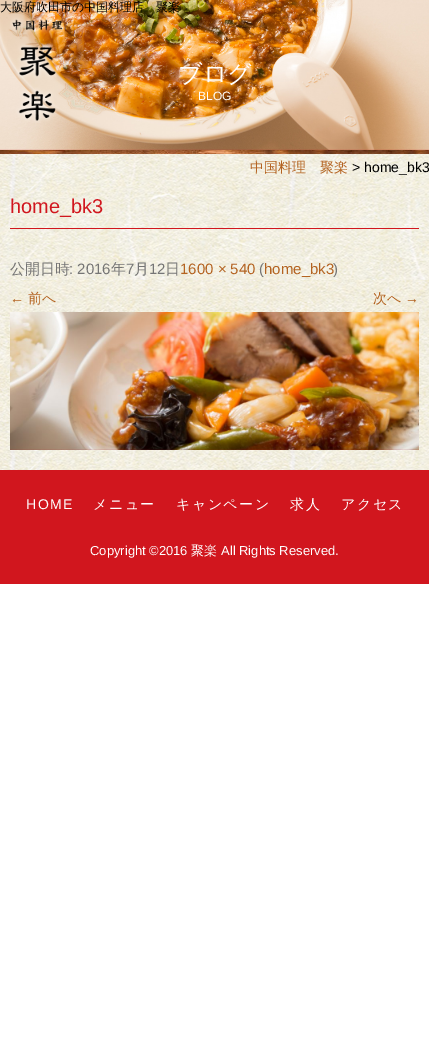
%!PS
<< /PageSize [429 1046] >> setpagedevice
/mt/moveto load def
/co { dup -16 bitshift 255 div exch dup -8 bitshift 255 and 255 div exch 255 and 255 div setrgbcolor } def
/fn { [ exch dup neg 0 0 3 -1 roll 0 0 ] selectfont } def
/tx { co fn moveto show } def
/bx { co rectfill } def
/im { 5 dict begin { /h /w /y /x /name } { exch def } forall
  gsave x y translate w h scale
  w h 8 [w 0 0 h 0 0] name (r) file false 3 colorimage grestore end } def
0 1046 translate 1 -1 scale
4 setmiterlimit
0 0 429 1046 16#FFFFFF bx
(media/1.raw) 0 154 429 316 im
(media/2.raw) 0 0 429 150 im
(media/3.raw) 10 16 56 107 im
10 228 409 1 16#D1161E bx
(media/4.raw) 10 312 409 138 im
(media/5.raw) 0 150 429 4 im
0 470 429 114 16#D1161E bx
(大阪府吹田市の中国料理店　聚楽) 0 11 /WenQuanYiZenHei-Medium 12 16#000000 tx
(中国料理　聚楽) 250 172 /WenQuanYiZenHei-Medium 14 16#B46321 tx
(> home_bk3) 352 172 /LiberationSans-Regular 14 16#000000 tx
(ブログ) 178 82 /WenQuanYiZenHei-Medium 24 16#FFFFFF tx
(BLOG) 198 100 /LiberationSans-Regular 12 16#FFFFFF tx
(home_bk3) 10 213 /LiberationSans-Regular 20 16#D1161E tx
(公開日時) 10 274 /WenQuanYiZenHei-Medium 15 16#757575 tx
(: 2016) 69 274 /LiberationSans-Regular 15 16#757575 tx
(年) 111 274 /WenQuanYiZenHei-Medium 15 16#757575 tx
(7) 126 274 /LiberationSans-Regular 15 16#757575 tx
(月) 134 274 /WenQuanYiZenHei-Medium 15 16#757575 tx
(12) 149 274 /LiberationSans-Regular 15 16#757575 tx
(日) 165 274 /WenQuanYiZenHei-Medium 15 16#757575 tx
(1600 × 540) 180 274 /LiberationSans-Regular 15 16#B46321 tx
(\() 259 274 /LiberationSans-Regular 15 16#757575 tx
(home_bk3) 264 274 /LiberationSans-Regular 15 16#B46321 tx
(\)) 333 274 /LiberationSans-Regular 15 16#757575 tx
(←) 10 303 /LiberationSans-Regular 14 16#B46321 tx
(前へ) 28 303 /WenQuanYiZenHei-Medium 14 16#B46321 tx
(次へ) 373 303 /WenQuanYiZenHei-Medium 14 16#B46321 tx
(→) 405 303 /LiberationSans-Regular 14 16#B46321 tx
16#FFFFFF co
26 509 mt 1.5 0 (HOME) ashow
/WenQuanYiZenHei-Medium 14 fn
93 509 mt 1.5 0 (メニュー) ashow
176 509 mt 1.5 0 (キャンペーン) ashow
290 509 mt 1.5 0 (求人) ashow
341 509 mt 1.5 0 (アクセス) ashow
(Copyright ©2016) 90 555 /LiberationSans-Regular 13 16#FFFFFF tx
(聚楽) 191 555 /WenQuanYiZenHei-Medium 13 16#FFFFFF tx
(All Rights Reserved.) 221 555 /LiberationSans-Regular 13 16#FFFFFF tx
showpage
